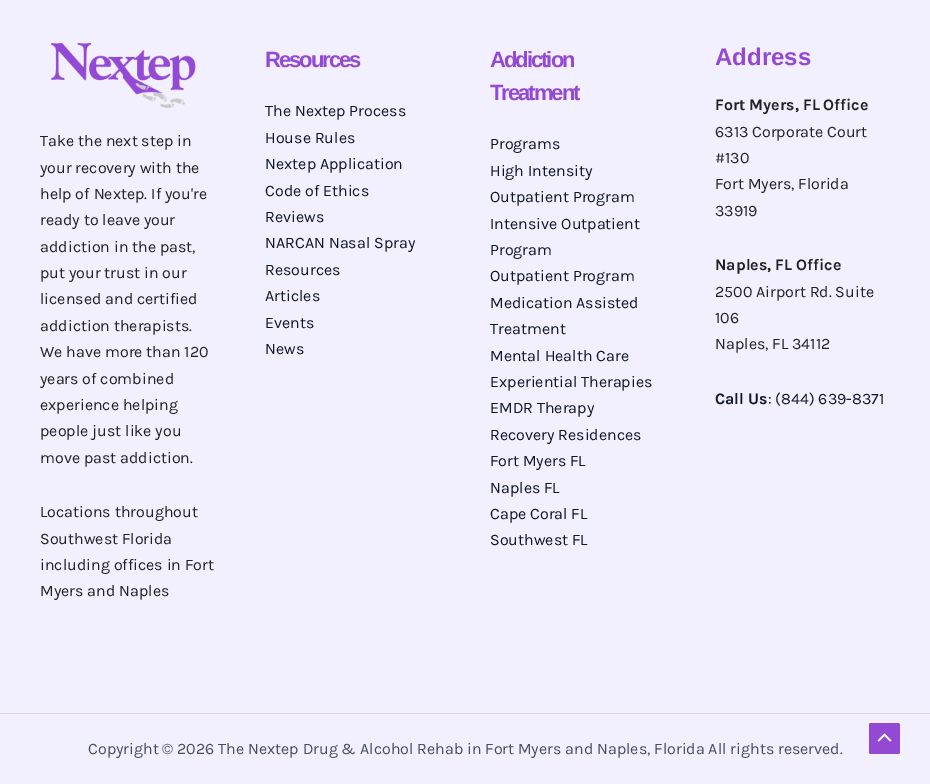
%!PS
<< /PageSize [930 784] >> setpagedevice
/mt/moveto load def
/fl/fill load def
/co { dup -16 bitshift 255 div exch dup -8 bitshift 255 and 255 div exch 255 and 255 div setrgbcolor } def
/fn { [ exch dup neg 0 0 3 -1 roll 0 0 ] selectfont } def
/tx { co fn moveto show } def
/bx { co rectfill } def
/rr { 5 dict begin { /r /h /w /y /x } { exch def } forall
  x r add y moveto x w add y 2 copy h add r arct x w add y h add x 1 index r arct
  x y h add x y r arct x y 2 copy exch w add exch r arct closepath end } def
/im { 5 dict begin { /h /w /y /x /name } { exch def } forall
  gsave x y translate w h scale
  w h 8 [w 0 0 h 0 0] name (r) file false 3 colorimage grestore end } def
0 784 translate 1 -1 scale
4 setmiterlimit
0 0 930 784 16#F2F0FE bx
(media/1.raw) 51 43 145 65 im
0 713 930 1 16#D8D8F5 bx
16#9449D5 co
869 723 31 31 2 rr fl
(media/2.raw) 877 733 15 9 im
(Take the next step in) 40 146 /Karla-Regular 16 16#222222 tx
(your recovery with the) 40 173 /Karla-Regular 16 16#222222 tx
(help of Nextep. If you're) 40 199 /Karla-Regular 16 16#222222 tx
(ready to leave your) 40 225 /Karla-Regular 16 16#222222 tx
(addiction in the past,) 40 252 /Karla-Regular 16 16#222222 tx
(put your trust in our) 40 278 /Karla-Regular 16 16#222222 tx
(licensed and certified) 40 304 /Karla-Regular 16 16#222222 tx
(addiction therapists.) 40 331 /Karla-Regular 16 16#222222 tx
(We have more than 120) 40 357 /Karla-Regular 16 16#222222 tx
(years of combined) 40 384 /Karla-Regular 16 16#222222 tx
(experience helping) 40 410 /Karla-Regular 16 16#222222 tx
(people just like you) 40 436 /Karla-Regular 16 16#222222 tx
(move past addiction.) 40 463 /Karla-Regular 16 16#222222 tx
(Locations throughout) 40 517 /Karla-Regular 16 16#222222 tx
(Southwest Florida) 40 544 /Karla-Regular 16 16#222222 tx
(including offices in Fort) 40 570 /Karla-Regular 16 16#222222 tx
(Myers and Naples) 40 596 /Karla-Regular 16 16#222222 tx
/LiberationSans-Bold 22 fn
16#9449D5 co
265 67 mt -2 0 (Resources) ashow
(The Nextep Process) 265 116 /Karla-Regular 16 16#0F172A tx
(House Rules) 265 143 /Karla-Regular 16 16#0F172A tx
(Nextep Application) 265 169 /Karla-Regular 16 16#0F172A tx
(Code of Ethics) 265 196 /Karla-Regular 16 16#0F172A tx
(Reviews) 265 222 /Karla-Regular 16 16#0F172A tx
(NARCAN Nasal Spray) 265 248 /Karla-Regular 16 16#0F172A tx
(Resources) 265 275 /Karla-Regular 16 16#0F172A tx
(Articles) 265 301 /Karla-Regular 16 16#0F172A tx
(Events) 265 328 /Karla-Regular 16 16#0F172A tx
(News) 265 354 /Karla-Regular 16 16#0F172A tx
/LiberationSans-Bold 22 fn
16#9449D5 co
490 67 mt -2 0 (Addiction) ashow
490 100 mt -2 0 (Treatment) ashow
(Programs) 490 149 /Karla-Regular 16 16#0F172A tx
(High Intensity) 490 176 /Karla-Regular 16 16#0F172A tx
(Outpatient Program) 490 202 /Karla-Regular 16 16#0F172A tx
(Intensive Outpatient) 490 229 /Karla-Regular 16 16#0F172A tx
(Program) 490 255 /Karla-Regular 16 16#0F172A tx
(Outpatient Program) 490 281 /Karla-Regular 16 16#0F172A tx
(Medication Assisted) 490 308 /Karla-Regular 16 16#0F172A tx
(Treatment) 490 334 /Karla-Regular 16 16#0F172A tx
(Mental Health Care) 490 361 /Karla-Regular 16 16#0F172A tx
(Experiential Therapies) 490 387 /Karla-Regular 16 16#0F172A tx
(EMDR Therapy) 490 413 /Karla-Regular 16 16#0F172A tx
(Recovery Residences) 490 440 /Karla-Regular 16 16#0F172A tx
(Fort Myers FL) 490 466 /Karla-Regular 16 16#0F172A tx
(Naples FL) 490 493 /Karla-Regular 16 16#0F172A tx
(Cape Coral FL) 490 519 /Karla-Regular 16 16#0F172A tx
(Southwest FL) 490 545 /Karla-Regular 16 16#0F172A tx
(Address) 715 65 /LiberationSans-Bold 24 16#9449D5 tx
(Fort Myers, FL Office) 715 110 /Karla-Bold 16 16#222222 tx
(6313 Corporate Court) 715 137 /Karla-Regular 16 16#222222 tx
(#130) 715 163 /Karla-Regular 16 16#222222 tx
(Fort Myers, Florida) 715 189 /Karla-Regular 16 16#222222 tx
(33919) 715 216 /Karla-Regular 16 16#222222 tx
(Naples, FL Office) 715 270 /Karla-Bold 16 16#222222 tx
(2500 Airport Rd. Suite) 715 297 /Karla-Regular 16 16#222222 tx
(106) 715 323 /Karla-Regular 16 16#222222 tx
(Naples, FL 34112) 715 349 /Karla-Regular 16 16#222222 tx
(Call Us) 715 404 /Karla-Bold 16 16#0F172A tx
(: \(844\) 639-8371) 768 404 /Karla-Regular 16 16#0F172A tx
(Copyright © 2026 The Nextep Drug & Alcohol Rehab in Fort Myers and Naples, Florida All rights reserved.) 88 754 /Karla-Regular 16 16#454F5E tx
showpage
